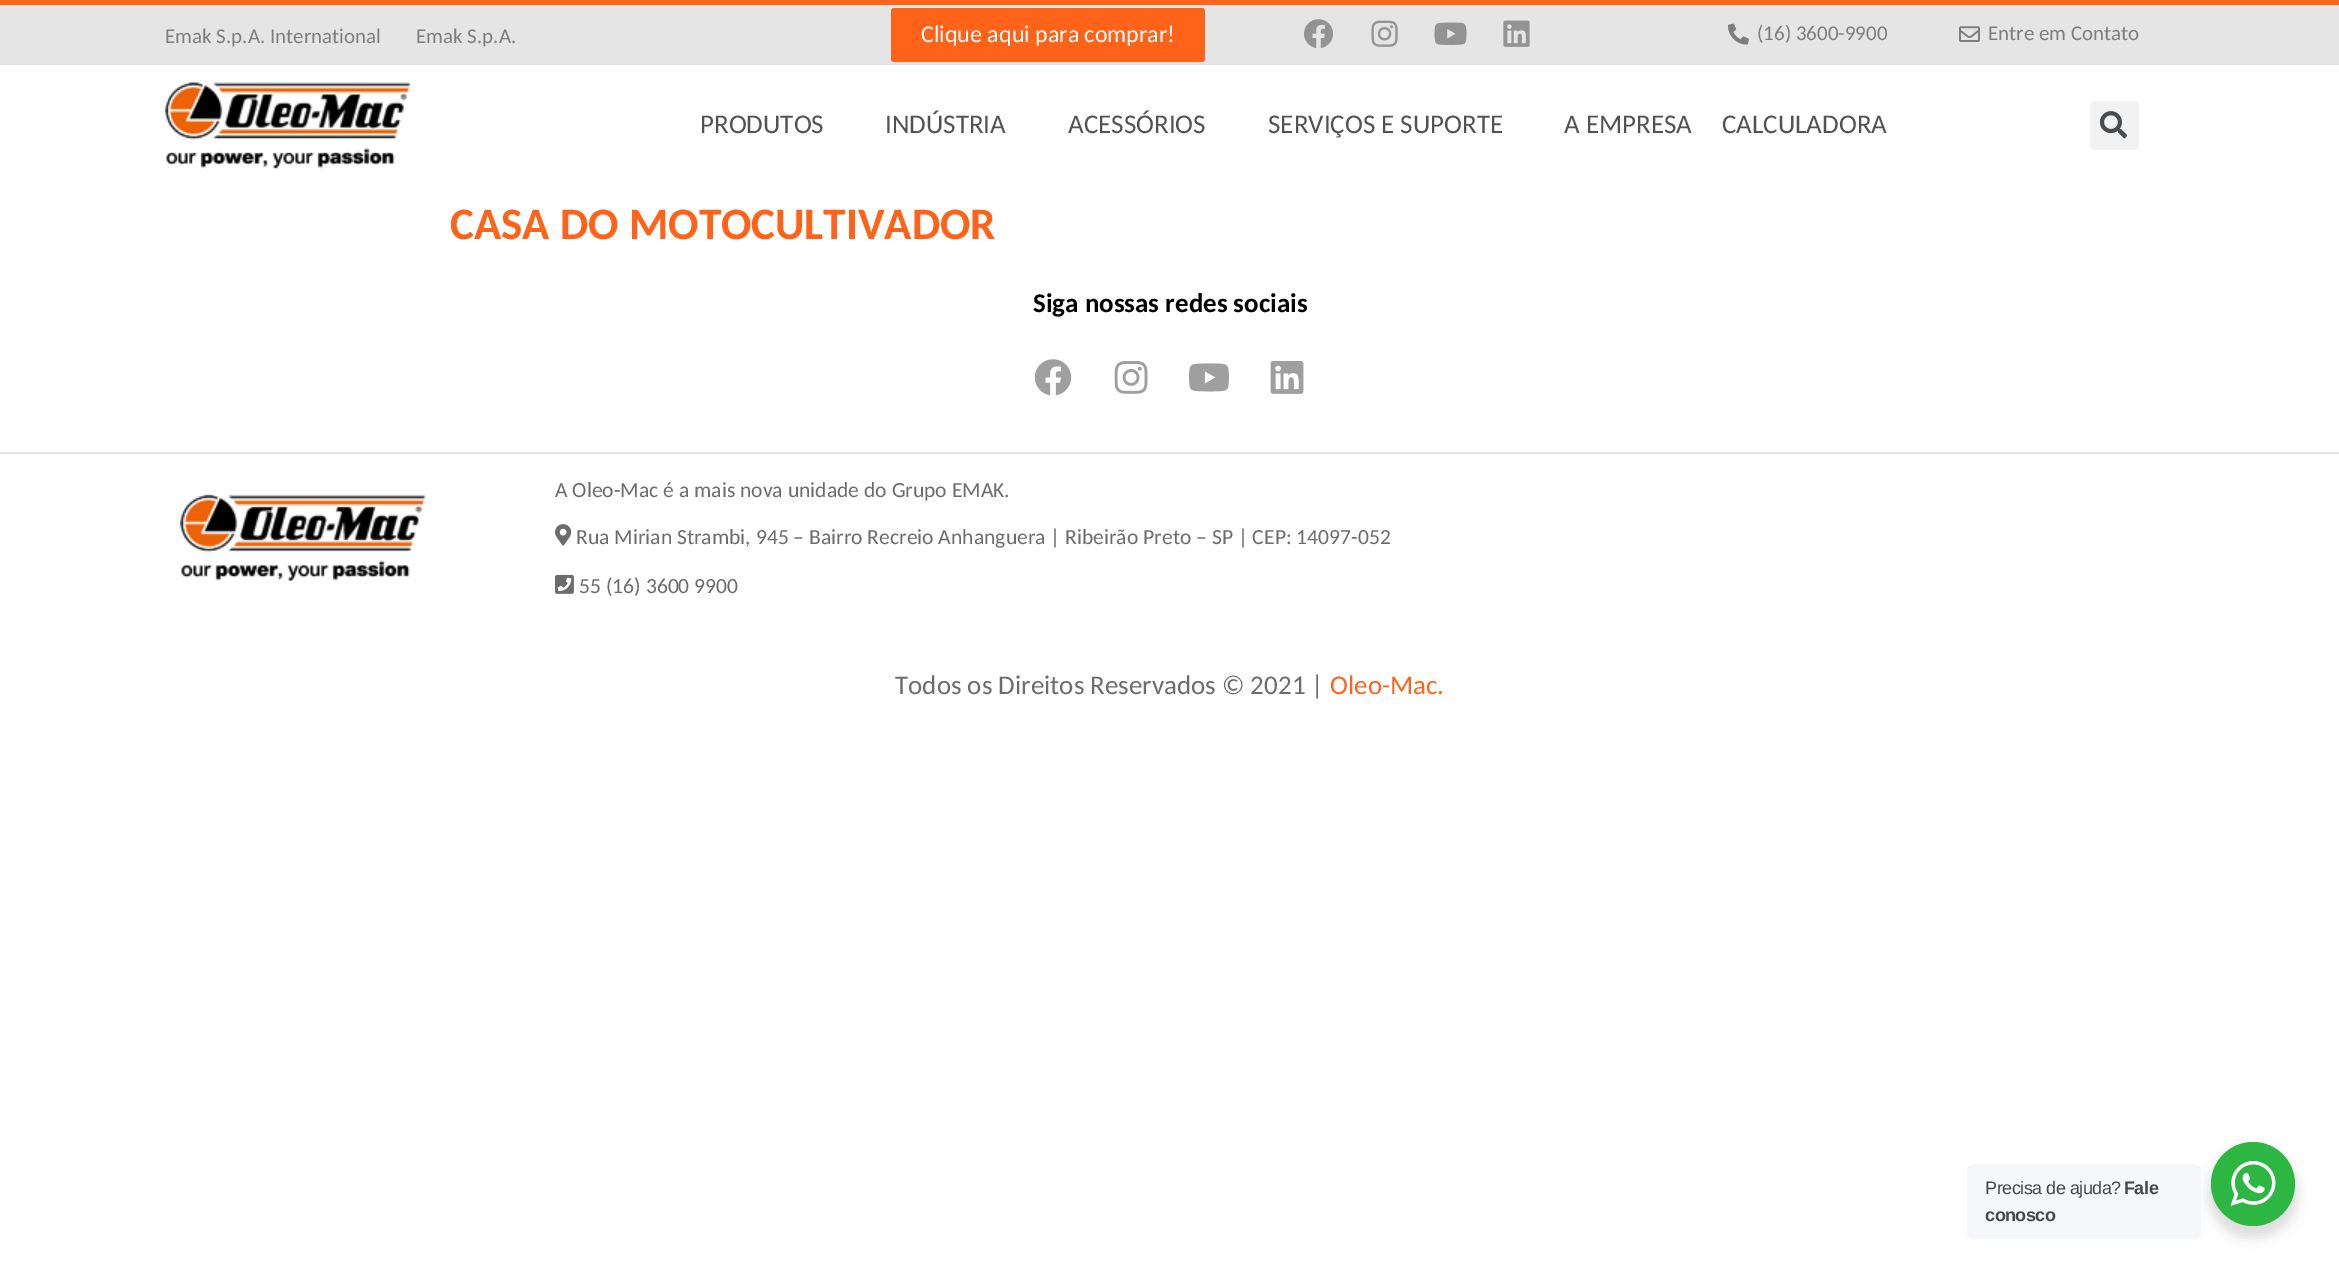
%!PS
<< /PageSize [2339 1270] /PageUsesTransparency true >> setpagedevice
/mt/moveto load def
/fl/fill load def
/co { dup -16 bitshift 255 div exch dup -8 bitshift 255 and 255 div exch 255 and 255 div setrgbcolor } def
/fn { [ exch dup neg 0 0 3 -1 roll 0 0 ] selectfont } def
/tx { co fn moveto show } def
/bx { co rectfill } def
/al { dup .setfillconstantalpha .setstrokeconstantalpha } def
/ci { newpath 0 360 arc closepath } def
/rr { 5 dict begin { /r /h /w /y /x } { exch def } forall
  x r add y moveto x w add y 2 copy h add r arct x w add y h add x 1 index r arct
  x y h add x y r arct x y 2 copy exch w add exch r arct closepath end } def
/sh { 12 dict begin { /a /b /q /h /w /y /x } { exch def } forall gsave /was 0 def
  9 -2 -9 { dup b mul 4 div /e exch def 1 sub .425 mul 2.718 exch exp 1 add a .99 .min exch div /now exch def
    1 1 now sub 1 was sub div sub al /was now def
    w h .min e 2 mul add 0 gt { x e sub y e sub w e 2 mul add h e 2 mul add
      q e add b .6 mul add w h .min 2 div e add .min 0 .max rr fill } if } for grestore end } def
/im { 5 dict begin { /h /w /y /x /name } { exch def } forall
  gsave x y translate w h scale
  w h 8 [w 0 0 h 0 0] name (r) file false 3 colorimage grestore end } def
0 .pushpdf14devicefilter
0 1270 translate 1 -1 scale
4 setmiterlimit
0 0 2339 1270 16#FFFFFF bx
0 0 2339 5 16#FF6319 bx
0 5 2339 60 16#E5E5E5 bx
16#FF6319 co
891 8 314 54 3 rr fl
(media/1.raw) 1304 19 29 29 im
(media/2.raw) 1371 20 27 27 im
(media/3.raw) 1434 22 33 23 im
(media/4.raw) 1503 20 27 27 im
(media/5.raw) 1728 23 21 22 im
(media/6.raw) 1959 26 21 16 im
(media/7.raw) 165 82 246 87 im
16#F2F2F2 co
2090 101 49 49 5 rr fl
(media/8.raw) 2099 111 29 28 im
(media/9.raw) 1034 359 38 37 im
(media/10.raw) 1114 361 34 33 im
(media/11.raw) 1189 363 40 29 im
(media/12.raw) 1270 361 34 33 im
0 452 2339 2 16#E5E5E5 bx
(media/13.raw) 180 494 246 87 im
(media/14.raw) 555 524 17 22 im
(media/15.raw) 555 574 19 20 im
16#000000 co
2208 1148 90 90 45 6 .14 sh
16#F5F7F9 co
1967 1164 234 75 6 rr fl
16#2DB742 co
2253 1184 42 ci fl
(media/16.raw) 2231 1161 45 45 im
(Emak S.p.A. International) 165 43 /Carlito-Regular 21 16#7D7D7D tx
(Emak S.p.A.) 416 43 /Carlito-Regular 21 16#7D7D7D tx
(Clique aqui para comprar!) 921 42 /Carlito-Regular 24 16#FFFFFF tx
(\(16\) 3600-9900) 1757 40 /Carlito-Regular 21 16#7D7D7D tx
(Entre em Contato) 1988 40 /Carlito-Regular 21 16#7D7D7D tx
(PRODUTOS) 700 133 /Carlito-Regular 27 16#525252 tx
(INDÚSTRIA) 885 133 /Carlito-Regular 27 16#525252 tx
(ACESSÓRIOS) 1068 133 /Carlito-Regular 27 16#525252 tx
(SERVIÇOS E SUPORTE) 1268 133 /Carlito-Regular 27 16#525252 tx
(A EMPRESA) 1564 133 /Carlito-Regular 27 16#525252 tx
(CALCULADORA) 1722 133 /Carlito-Regular 27 16#525252 tx
(CASA DO MOTOCULTIVADOR) 450 239 /Carlito-Bold 45 16#FF6319 tx
(Siga nossas redes sociais) 1033 312 /Carlito-Bold 27 16#000000 tx
(A Oleo-Mac é a mais nova unidade do Grupo EMAK.) 555 497 /Carlito-Regular 21.6 16#6C6C6C tx
(Rua Mirian Strambi, 945 – Bairro Recreio Anhanguera | Ribeirão Preto – SP | CEP: 14097-052) 576 544 /Carlito-Regular 21.6 16#6C6C6C tx
(55 \(16\) 3600 9900) 579 593 /Carlito-Regular 21.6 16#6C6C6C tx
(Todos os Direitos Reservados © 2021 |) 895 694 /Carlito-Regular 27 16#6C6C6C tx
(Oleo-Mac.) 1330 694 /Carlito-Regular 27 16#FF6319 tx
/LiberationSans-Regular 18 fn
16#43474E co
1985 1194 mt -.5 0 (Precisa de ajuda?) ashow
/LiberationSans-Bold 18 fn
2124 1194 mt -.5 0 (Fale) ashow
1985 1221 mt -.5 0 (conosco) ashow
.poppdf14devicefilter showpage
